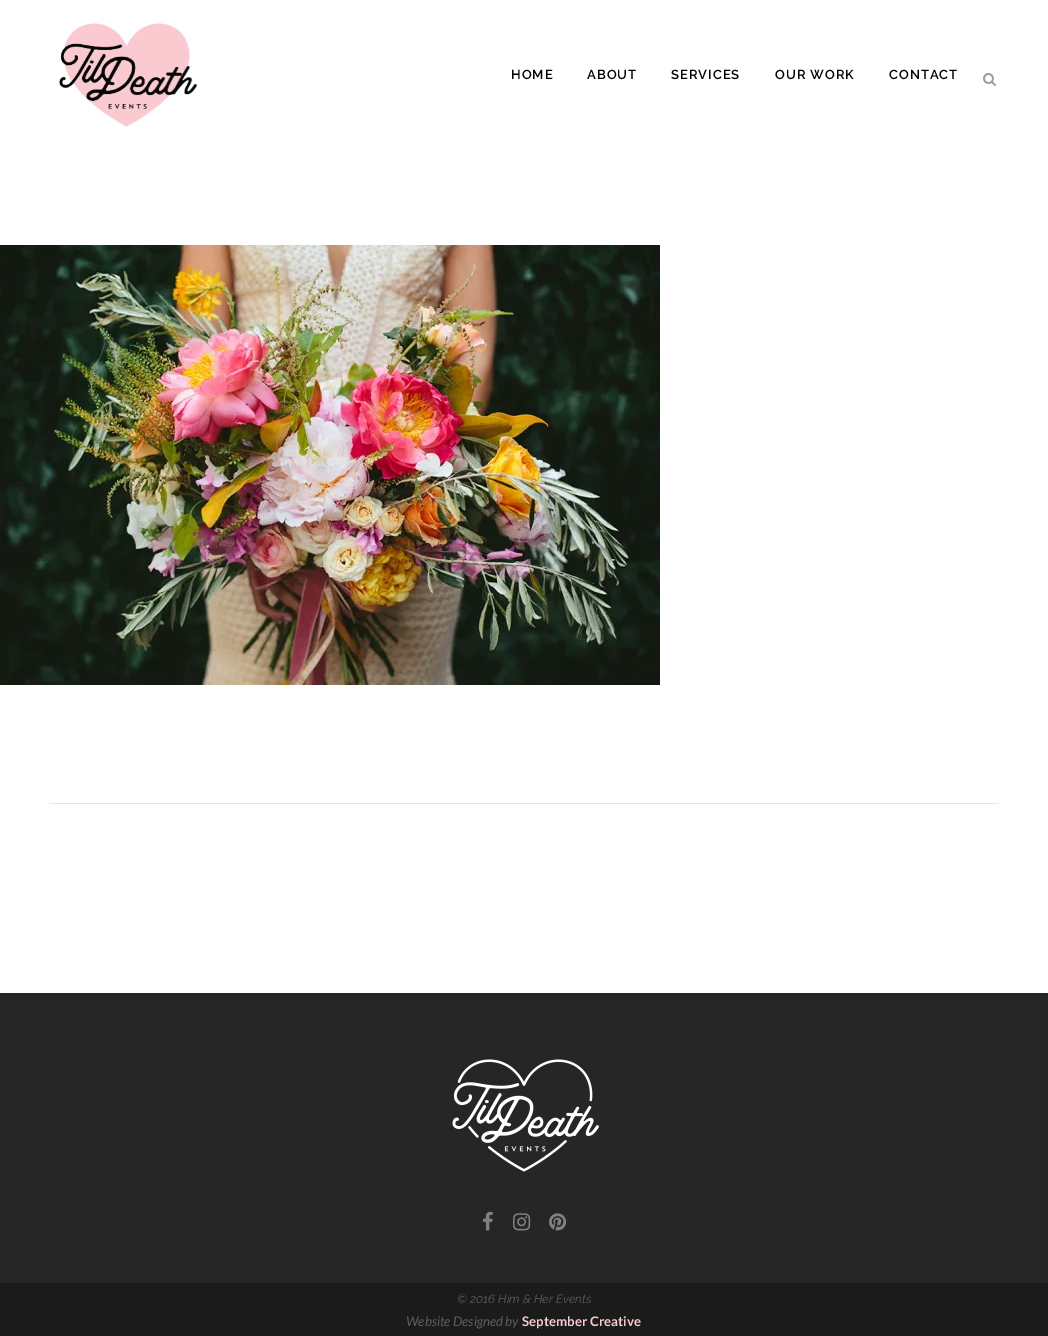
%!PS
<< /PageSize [1048 1336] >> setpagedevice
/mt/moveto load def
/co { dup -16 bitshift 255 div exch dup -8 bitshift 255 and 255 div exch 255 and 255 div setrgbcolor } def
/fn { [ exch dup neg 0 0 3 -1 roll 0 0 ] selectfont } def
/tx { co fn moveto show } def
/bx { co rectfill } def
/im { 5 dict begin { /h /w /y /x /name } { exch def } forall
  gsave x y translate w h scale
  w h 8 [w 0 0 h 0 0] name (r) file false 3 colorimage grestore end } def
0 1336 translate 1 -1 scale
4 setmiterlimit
0 0 1048 1336 16#FFFFFF bx
(media/1.raw) 59 23 138 104 im
(media/2.raw) 983 73 13 13 im
(media/3.raw) 0 245 660 440 im
49 803 950 1 16#E5E5E5 bx
0 993 1048 290 16#262626 bx
(media/4.raw) 452 1059 147 113 im
(media/5.raw) 483 1211 10 20 im
(media/6.raw) 513 1213 18 18 im
(media/7.raw) 549 1213 18 18 im
0 1283 1048 53 16#1B1B1B bx
/Raleway-SemiBold 13 fn
16#000000 co
511 79 mt 1 0 (HOME) ashow
587 79 mt 1 0 (ABOUT) ashow
671 79 mt 1 0 (SERVICES) ashow
775 79 mt 1 0 (OUR WORK) ashow
889 79 mt 1 0 (CONTACT) ashow
(© 2016 Him & Her Events) 457 1303 /Raleway-Italic 12 16#5E5E5E tx
(Website Designed by) 406 1326 /Lato-Italic 13.25 16#5E5E5E tx
(September Creative) 522 1326 /Lato-Bold 13.25 16#F8CAD0 tx
showpage
